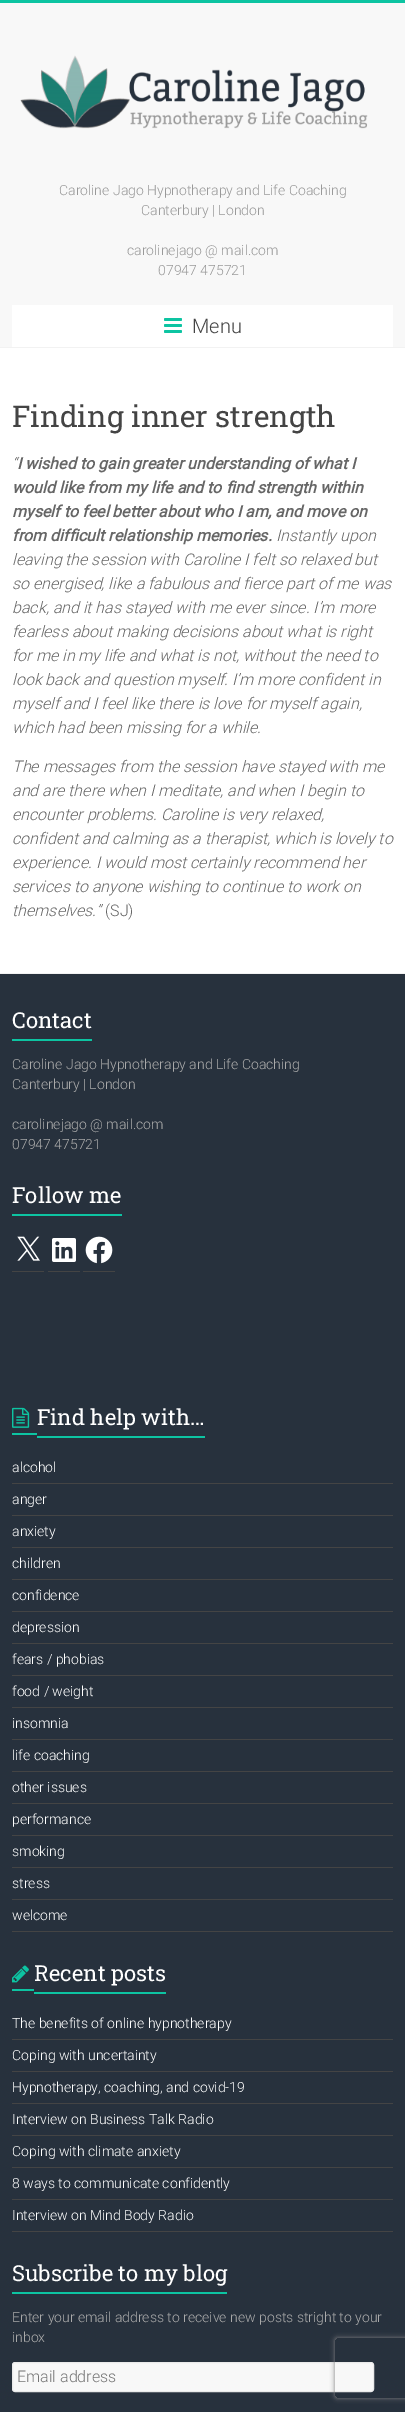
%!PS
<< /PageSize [405 2412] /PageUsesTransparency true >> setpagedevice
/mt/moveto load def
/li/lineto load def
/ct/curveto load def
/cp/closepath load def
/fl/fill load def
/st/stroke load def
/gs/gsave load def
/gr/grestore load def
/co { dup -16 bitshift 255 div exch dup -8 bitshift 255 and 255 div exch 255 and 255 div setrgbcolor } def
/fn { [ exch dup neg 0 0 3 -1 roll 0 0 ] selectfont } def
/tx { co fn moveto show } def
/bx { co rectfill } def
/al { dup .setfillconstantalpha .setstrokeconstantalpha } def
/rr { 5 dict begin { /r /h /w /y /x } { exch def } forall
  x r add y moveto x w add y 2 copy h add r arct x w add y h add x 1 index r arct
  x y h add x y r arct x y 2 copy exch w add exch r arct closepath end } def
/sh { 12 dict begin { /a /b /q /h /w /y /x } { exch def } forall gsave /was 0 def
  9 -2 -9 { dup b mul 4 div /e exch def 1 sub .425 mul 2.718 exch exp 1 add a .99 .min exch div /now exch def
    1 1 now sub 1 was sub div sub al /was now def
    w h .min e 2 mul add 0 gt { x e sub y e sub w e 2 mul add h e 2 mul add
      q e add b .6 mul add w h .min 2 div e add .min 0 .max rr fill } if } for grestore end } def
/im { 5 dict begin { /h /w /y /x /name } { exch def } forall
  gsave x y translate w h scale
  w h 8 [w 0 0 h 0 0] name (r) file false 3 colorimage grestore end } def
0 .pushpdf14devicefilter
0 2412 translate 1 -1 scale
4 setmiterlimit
0 0 405 2412 16#FFFFFF bx
0 0 405 3 16#0DC4A2 bx
0 3 405 344 16#F8F8F8 bx
0 347 405 1 16#F2F2F2 bx
(media/1.raw) 20 55 348 74 im
12 305 381 42 16#FFFFFF bx
(media/2.raw) 164 318 18 15 im
0 974 405 1438 16#27313D bx
0 973 405 1 16#F2F2F2 bx
12 1039 80 2 16#0DC4A2 bx
12 1214 110 2 16#0DC4A2 bx
12 1271 32 1 16#444444 bx
(media/3.raw) 17 1236 23 25 im
48 1271 32 1 16#444444 bx
(media/4.raw) 52 1238 24 24 im
83 1271 32 1 16#444444 bx
(media/5.raw) 85 1236 28 28 im
(media/6.raw) 12 1407 18 21 im
12 1433 25 2 16#0DC4A2 bx
37 1436 168 2 16#0DC4A2 bx
12 1483 381 1 16#444444 bx
12 1515 381 1 16#444444 bx
12 1547 381 1 16#444444 bx
12 1579 381 1 16#444444 bx
12 1611 381 1 16#444444 bx
12 1643 381 1 16#444444 bx
12 1675 381 1 16#444444 bx
12 1707 381 1 16#444444 bx
12 1739 381 1 16#444444 bx
12 1771 381 1 16#444444 bx
12 1803 381 1 16#444444 bx
12 1835 381 1 16#444444 bx
12 1867 381 1 16#444444 bx
12 1899 381 1 16#444444 bx
12 1931 381 1 16#444444 bx
(media/7.raw) 12 1965 17 18 im
12 1989 22 2 16#0DC4A2 bx
34 1992 132 2 16#0DC4A2 bx
12 2039 381 1 16#444444 bx
12 2071 381 1 16#444444 bx
12 2103 381 1 16#444444 bx
12 2135 381 1 16#444444 bx
12 2167 381 1 16#444444 bx
12 2199 381 1 16#444444 bx
12 2231 381 1 16#444444 bx
12 2292 215 2 16#0DC4A2 bx
16#F8F8F8 co
12.5 2362.5 361 29 2.5 rr gs fl gr
16#EAEAEA co
st
gs
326 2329 mt 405 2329 li 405 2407 li 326 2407 li cp 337 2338 mt 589 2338 li 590 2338 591 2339 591 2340 ct 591 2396 li 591 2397 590 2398 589 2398 ct 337 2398 li 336 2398 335 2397 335 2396 ct 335 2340 li 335 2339 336 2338 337 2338 ct cp eoclip newpath
16#808080 co
335 2338 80 60 2 2.5 1 sh
gr
(Caroline Jago Hypnotherapy and Life Coaching) 59 195 /Roboto-Light 14 16#999999 tx
(Canterbury | London) 141 215 /Roboto-Light 14 16#999999 tx
(carolinejago @ mail.com) 127 255 /Roboto-Light 14 16#999999 tx
(07947 475721) 158 275 /Roboto-Light 14 16#999999 tx
(Menu) 192 333 /Roboto-Light 20 16#444444 tx
(Finding inner strength) 12 427 /RobotoSlab-Regular 30 16#444444 tx
(“) 12 469 /Roboto-LightItalic 16 16#666666 tx
(I wished to gain greater understanding of what I) 17 469 /Roboto-BoldItalic 16 16#666666 tx
(would like from my life and to find strength within) 12 493 /Roboto-BoldItalic 16 16#666666 tx
(myself to feel better about who I am, and move on) 12 517 /Roboto-BoldItalic 16 16#666666 tx
(from difficult relationship memories.) 12 541 /Roboto-BoldItalic 16 16#666666 tx
(Instantly upon) 276 541 /Roboto-LightItalic 16 16#666666 tx
(leaving the session with Caroline I felt so relaxed but) 12 565 /Roboto-LightItalic 16 16#666666 tx
(so energised, like a fabulous and fierce part of me was) 12 589 /Roboto-LightItalic 16 16#666666 tx
(back, and it has stayed with me ever since. I’m more) 12 613 /Roboto-LightItalic 16 16#666666 tx
(fearless about making decisions about what is right) 12 637 /Roboto-LightItalic 16 16#666666 tx
(for me in my life and what is not, without the need to) 12 661 /Roboto-LightItalic 16 16#666666 tx
(look back and question myself. I’m more confident in) 12 685 /Roboto-LightItalic 16 16#666666 tx
(myself and I feel like there is love for myself again,) 12 709 /Roboto-LightItalic 16 16#666666 tx
(which had been missing for a while.) 12 733 /Roboto-LightItalic 16 16#666666 tx
(The messages from the session have stayed with me) 12 772 /Roboto-LightItalic 16 16#666666 tx
(and are there when I meditate, and when I begin to) 12 796 /Roboto-LightItalic 16 16#666666 tx
(encounter problems. Caroline is very relaxed,) 12 820 /Roboto-LightItalic 16 16#666666 tx
(confident and calming as a therapist, which is lovely to) 12 844 /Roboto-LightItalic 16 16#666666 tx
(experience. I would most certainly recommend her) 12 868 /Roboto-LightItalic 16 16#666666 tx
(services to anyone wishing to continue to work on) 12 892 /Roboto-LightItalic 16 16#666666 tx
(themselves.”) 12 916 /Roboto-LightItalic 16 16#666666 tx
(\(SJ\)) 105 916 /Roboto-Light 16 16#666666 tx
(Contact) 12 1028 /RobotoSlab-Regular 22 16#FFFFFF tx
(Caroline Jago Hypnotherapy and Life Coaching) 12 1069 /Roboto-Light 14 16#AAAAAA tx
(Canterbury | London) 12 1089 /Roboto-Light 14 16#AAAAAA tx
(carolinejago @ mail.com) 12 1129 /Roboto-Light 14 16#AAAAAA tx
(07947 475721) 12 1149 /Roboto-Light 14 16#AAAAAA tx
(Follow me) 12 1203 /RobotoSlab-Regular 22 16#FFFFFF tx
(Find help with…) 37 1425 /RobotoSlab-Regular 22 16#FFFFFF tx
(alcohol) 12 1472 /Roboto-Light 14 16#FFFFFF tx
(anger) 12 1504 /Roboto-Light 14 16#FFFFFF tx
(anxiety) 12 1536 /Roboto-Light 14 16#FFFFFF tx
(children) 12 1568 /Roboto-Light 14 16#FFFFFF tx
(confidence) 12 1600 /Roboto-Light 14 16#FFFFFF tx
(depression) 12 1632 /Roboto-Light 14 16#FFFFFF tx
(fears / phobias) 12 1664 /Roboto-Light 14 16#FFFFFF tx
(food / weight) 12 1696 /Roboto-Light 14 16#FFFFFF tx
(insomnia) 12 1728 /Roboto-Light 14 16#FFFFFF tx
(life coaching) 12 1760 /Roboto-Light 14 16#FFFFFF tx
(other issues) 12 1792 /Roboto-Light 14 16#FFFFFF tx
(performance) 12 1824 /Roboto-Light 14 16#FFFFFF tx
(smoking) 12 1856 /Roboto-Light 14 16#FFFFFF tx
(stress) 12 1888 /Roboto-Light 14 16#FFFFFF tx
(welcome) 12 1920 /Roboto-Light 14 16#FFFFFF tx
(Recent posts) 34 1981 /RobotoSlab-Regular 22 16#FFFFFF tx
(The benefits of online hypnotherapy) 12 2028 /Roboto-Light 14 16#FFFFFF tx
(Coping with uncertainty) 12 2060 /Roboto-Light 14 16#FFFFFF tx
(Hypnotherapy, coaching, and covid-19) 12 2092 /Roboto-Light 14 16#FFFFFF tx
(Interview on Business Talk Radio) 12 2124 /Roboto-Light 14 16#FFFFFF tx
(Coping with climate anxiety) 12 2156 /Roboto-Light 14 16#FFFFFF tx
(8 ways to communicate confidently) 12 2188 /Roboto-Light 14 16#FFFFFF tx
(Interview on Mind Body Radio) 12 2220 /Roboto-Light 14 16#FFFFFF tx
(Subscribe to my blog) 12 2281 /RobotoSlab-Regular 22 16#FFFFFF tx
(Enter your email address to receive new posts stright to your) 12 2322 /Roboto-Light 14 16#AAAAAA tx
(inbox) 12 2342 /Roboto-Light 14 16#AAAAAA tx
(Email address) 17 2382 /Roboto-Light 16 16#757575 tx
.poppdf14devicefilter showpage
